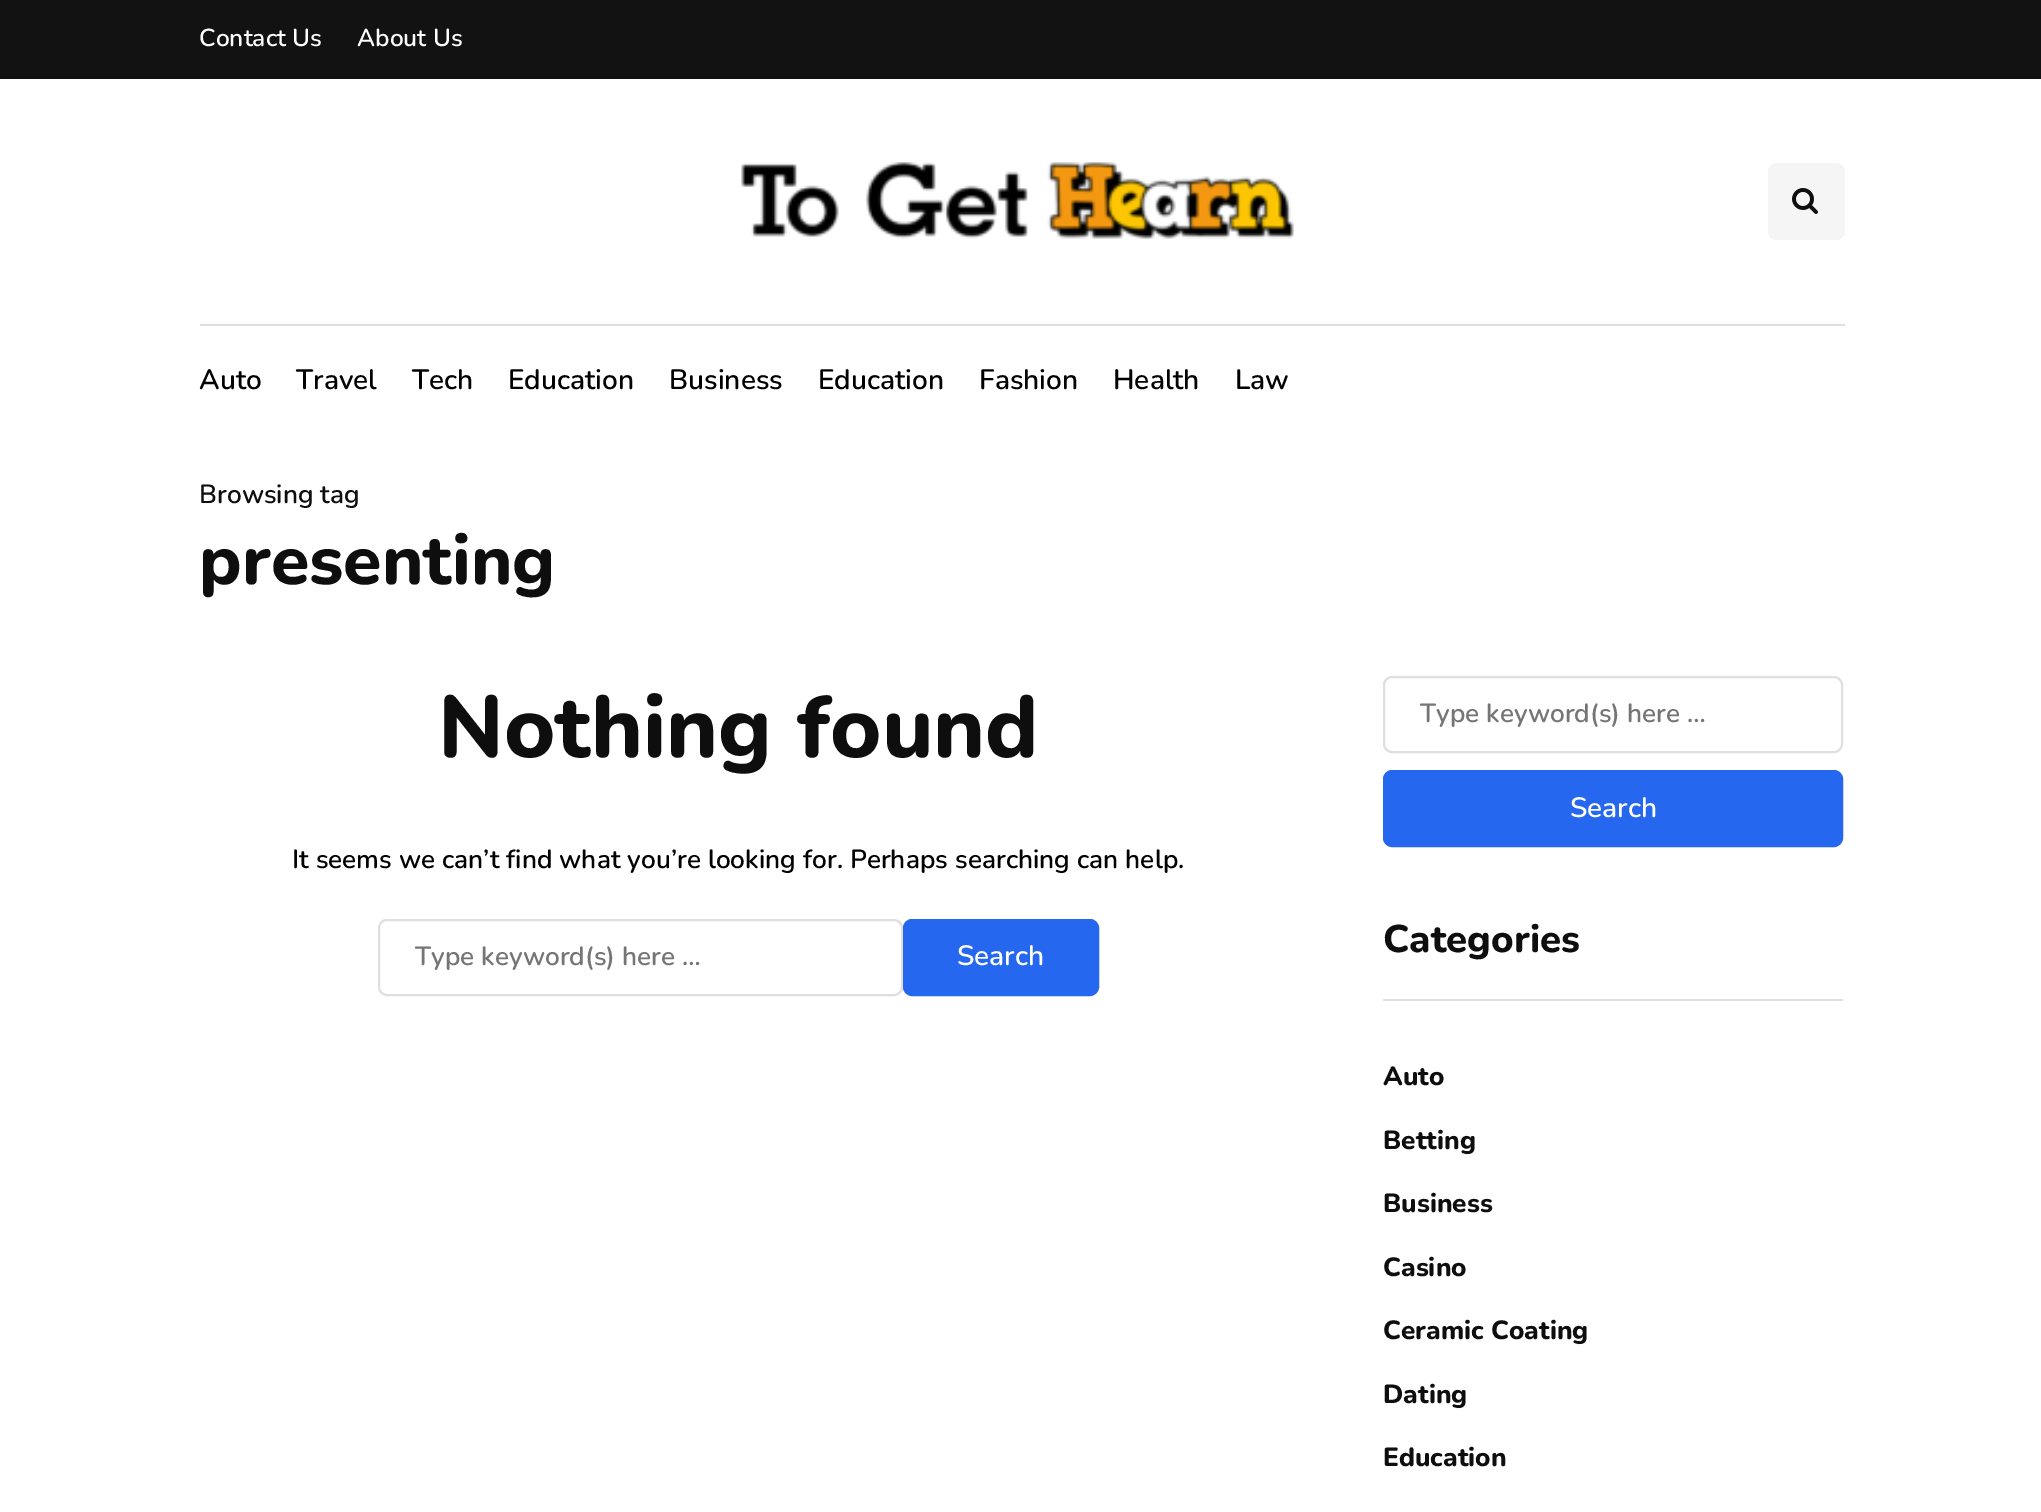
%!PS
<< /PageSize [2041 1512] >> setpagedevice
/fl/fill load def
/st/stroke load def
/gs/gsave load def
/gr/grestore load def
/lw/setlinewidth load def
/co { dup -16 bitshift 255 div exch dup -8 bitshift 255 and 255 div exch 255 and 255 div setrgbcolor } def
/fn { [ exch dup neg 0 0 3 -1 roll 0 0 ] selectfont } def
/tx { co fn moveto show } def
/bx { co rectfill } def
/rr { 5 dict begin { /r /h /w /y /x } { exch def } forall
  x r add y moveto x w add y 2 copy h add r arct x w add y h add x 1 index r arct
  x y h add x y r arct x y 2 copy exch w add exch r arct closepath end } def
/im { 5 dict begin { /h /w /y /x /name } { exch def } forall
  gsave x y translate w h scale
  w h 8 [w 0 0 h 0 0] name (r) file false 3 colorimage grestore end } def
0 1512 translate 1 -1 scale
4 setmiterlimit
0 0 2041 1512 16#FFFFFF bx
0 0 2041 79 16#121212 bx
(media/1.raw) 741 162 553 77 im
16#F5F5F5 co
1768 163 77 77 9 rr fl
(media/2.raw) 1792 188 26 26 im
200 324 1645 2 16#E0DEDE bx
2 lw
379 920 523 75 8 rr st
16#2568EF co
904 920 194 75 8 rr gs fl gr
st
16#E0DEDE co
1384 677 458 75 8 rr st
16#2568EF co
1384 771 458 75 8 rr gs fl gr
st
1383 999 460 2 16#E0DEDE bx
(Contact Us) 199 46 /Nunito-SemiBold 24.5 16#FFFFFF tx
(About Us) 357 46 /Nunito-SemiBold 24.5 16#FFFFFF tx
(Auto) 199 389 /Nunito-SemiBold 28 16#000000 tx
(Travel) 296 389 /Nunito-SemiBold 28 16#000000 tx
(Tech) 412 389 /Nunito-SemiBold 28 16#000000 tx
(Education) 508 389 /Nunito-SemiBold 28 16#000000 tx
(Business) 669 389 /Nunito-SemiBold 28 16#000000 tx
(Education) 818 389 /Nunito-SemiBold 28 16#000000 tx
(Fashion) 979 389 /Nunito-SemiBold 28 16#000000 tx
(Health) 1113 389 /Nunito-SemiBold 28 16#000000 tx
(Law) 1235 389 /Nunito-SemiBold 28 16#000000 tx
(Browsing tag) 199 503 /Nunito-SemiBold 26.25 16#0F0E0E tx
(presenting) 199 584 /Nunito-ExtraBold 70 16#0F0E0E tx
(Nothing found) 438 757 /Nunito-ExtraBold 87.5 16#0F0E0E tx
(It seems we can’t find what you’re looking for. Perhaps searching can help.) 292 868 /Nunito-SemiBold 26.25 16#000000 tx
(Type keyword\(s\) here …) 415 965 /Nunito-SemiBold 26.25 16#757575 tx
(Search) 957 965 /Nunito-SemiBold 28 16#FFFFFF tx
(Type keyword\(s\) here …) 1420 722 /Nunito-SemiBold 26.25 16#757575 tx
(Search) 1570 817 /Nunito-SemiBold 28 16#FFFFFF tx
(Categories) 1383 952 /Nunito-ExtraBold 38.5 16#0F0E0E tx
(Auto) 1383 1085 /Nunito-ExtraBold 26.25 16#0F0E0E tx
(Betting) 1383 1149 /Nunito-ExtraBold 26.25 16#0F0E0E tx
(Business) 1383 1212 /Nunito-ExtraBold 26.25 16#0F0E0E tx
(Casino) 1383 1276 /Nunito-ExtraBold 26.25 16#0F0E0E tx
(Ceramic Coating) 1383 1339 /Nunito-ExtraBold 26.25 16#0F0E0E tx
(Dating) 1383 1403 /Nunito-ExtraBold 26.25 16#0F0E0E tx
(Education) 1383 1466 /Nunito-ExtraBold 26.25 16#0F0E0E tx
showpage
